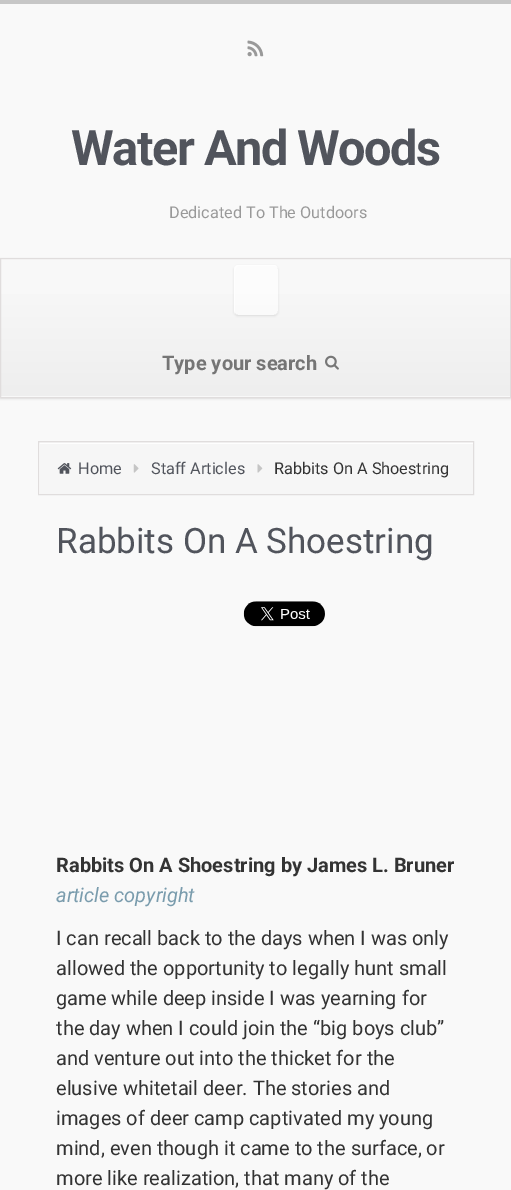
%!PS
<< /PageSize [511 1190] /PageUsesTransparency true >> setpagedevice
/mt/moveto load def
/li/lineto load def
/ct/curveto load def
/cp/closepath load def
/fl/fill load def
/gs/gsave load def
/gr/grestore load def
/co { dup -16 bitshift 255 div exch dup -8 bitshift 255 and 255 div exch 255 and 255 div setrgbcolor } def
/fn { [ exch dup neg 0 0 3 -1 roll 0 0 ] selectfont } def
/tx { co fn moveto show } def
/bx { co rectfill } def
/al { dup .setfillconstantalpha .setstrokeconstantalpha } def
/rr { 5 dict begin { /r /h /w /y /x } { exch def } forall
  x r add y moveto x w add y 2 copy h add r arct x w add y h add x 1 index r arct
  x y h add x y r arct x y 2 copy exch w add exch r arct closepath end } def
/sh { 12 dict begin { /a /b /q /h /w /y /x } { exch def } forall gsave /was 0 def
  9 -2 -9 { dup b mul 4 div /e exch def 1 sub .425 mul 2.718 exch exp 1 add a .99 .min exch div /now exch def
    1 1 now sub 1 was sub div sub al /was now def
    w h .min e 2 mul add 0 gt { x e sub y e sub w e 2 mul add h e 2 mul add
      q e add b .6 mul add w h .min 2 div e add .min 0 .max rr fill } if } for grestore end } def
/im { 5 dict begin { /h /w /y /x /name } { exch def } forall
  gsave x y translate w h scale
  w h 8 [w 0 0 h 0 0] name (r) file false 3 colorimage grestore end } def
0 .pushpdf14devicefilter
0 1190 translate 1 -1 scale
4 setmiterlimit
0 0 511 1190 16#F9F9F9 bx
0 0 511 4 16#C7C7C7 bx
(media/1.raw) 247 40 17 17 im
16#000000 co
0 259 511 140 0 1 .1 sh
gs 1 260 mt 510 260 li 510 396 li 1 396 li cp clip newpath
<< /ShadingType 2 /ColorSpace /DeviceRGB /Coords [1.2 259 1.2 396] /Extend [true true] /Function << /FunctionType 3 /Domain [0 1] /Functions [<< /FunctionType 2 /Domain [0 1] /C0 [.973 .973 .973] /C1 [.973 .973 .973] /N 1 >> << /FunctionType 2 /Domain [0 1] /C0 [.973 .973 .973] /C1 [.933 .933 .933] /N 1 >>] /Bounds [.2] /Encode [0 1 0 1] >> >> shfill gr
gs 0 396 mt 511 396 li 511 397 li 0 397 li cp clip newpath
<< /ShadingType 2 /ColorSpace /DeviceRGB /Coords [1.2 396 1.2 534] /Extend [true true] /Function << /FunctionType 3 /Domain [0 1] /Functions [<< /FunctionType 2 /Domain [0 1] /C0 [.973 .973 .973] /C1 [.973 .973 .973] /N 1 >> << /FunctionType 2 /Domain [0 1] /C0 [.973 .973 .973] /C1 [.933 .933 .933] /N 1 >>] /Bounds [.2] /Encode [0 1 0 1] >> >> shfill gr
1 259 509 1 16#FAFAFA bx
16#E0DDDD co
.5 258.5 510 139 rectstroke
gs
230 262 mt 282 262 li 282 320 li 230 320 li cp 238 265 mt 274 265 li 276 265 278 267 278 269 ct 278 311 li 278 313 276 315 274 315 ct 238 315 li 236 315 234 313 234 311 ct 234 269 li 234 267 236 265 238 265 ct cp eoclip newpath
16#000000 co
234 266 44 50 4 1 .1 sh
gr
0.5 al
16#FFFFFF co
234 265 44 50 4 rr fl
0.8 al
239 266 mt 275 266 li 277 267 li 277 266 275 265 274 265 ct 238 265 li 236 265 234 267 234 269 ct 234 311 li 234 312 235 313 235 314 ct 235 277 li 235 274 234 266 239 266 ct cp fl
1 al
(media/2.raw) 325 355 14 15 im
39 442 434 52 16#F6F6F6 bx
gs
39 443 434 51 rectclip
16#FEFEFE co
-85 319 mt 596 319 li 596 618 li -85 618 li cp 40 444 mt 474 444 li 474 495 li 40 495 li cp eofill
gr
16#E0DDDD co
38.5 441.5 435 53 rectstroke
(media/3.raw) 57 463 15 11 im
(media/4.raw) 133 464 6 9 im
(media/5.raw) 257 464 6 9 im
(media/6.raw) 243 601 82 26 im
/Roboto-Bold 48.75 fn
16#51545C co
71 165 mt -1.5 0 (Water And Woods) ashow
(Dedicated To The Outdoors) 169 218 /Roboto-Regular 16.25 16#999999 tx
(Type your search) 162 370 /Roboto-Bold 20 16#757575 tx
(Home) 78 474 /Roboto-Regular 16.25 16#51545C tx
(Staff Articles) 151 474 /Roboto-Regular 16.25 16#51545C tx
(Rabbits On A Shoestring) 274 474 /Roboto-Regular 16.25 16#333333 tx
(Rabbits On A Shoestring) 56 553 /Roboto-Regular 35 16#51545C tx
(Rabbits On A Shoestring by James L. Bruner) 56 872 /Roboto-Bold 20 16#333333 tx
(article copyright) 56 902 /Roboto-Italic 20 16#7A9CAD tx
(I can recall back to the days when I was only) 56 945 /Roboto-Regular 20 16#333333 tx
(allowed the opportunity to legally hunt small) 56 975 /Roboto-Regular 20 16#333333 tx
(game while deep inside I was yearning for) 56 1005 /Roboto-Regular 20 16#333333 tx
(the day when I could join the “big boys club”) 56 1035 /Roboto-Regular 20 16#333333 tx
(and venture out into the thicket for the) 56 1065 /Roboto-Regular 20 16#333333 tx
(elusive whitetail deer. The stories and) 56 1095 /Roboto-Regular 20 16#333333 tx
(images of deer camp captivated my young) 56 1125 /Roboto-Regular 20 16#333333 tx
(mind, even though it came to the surface, or) 56 1155 /Roboto-Regular 20 16#333333 tx
(more like realization, that many of the) 56 1185 /Roboto-Regular 20 16#333333 tx
.poppdf14devicefilter showpage
